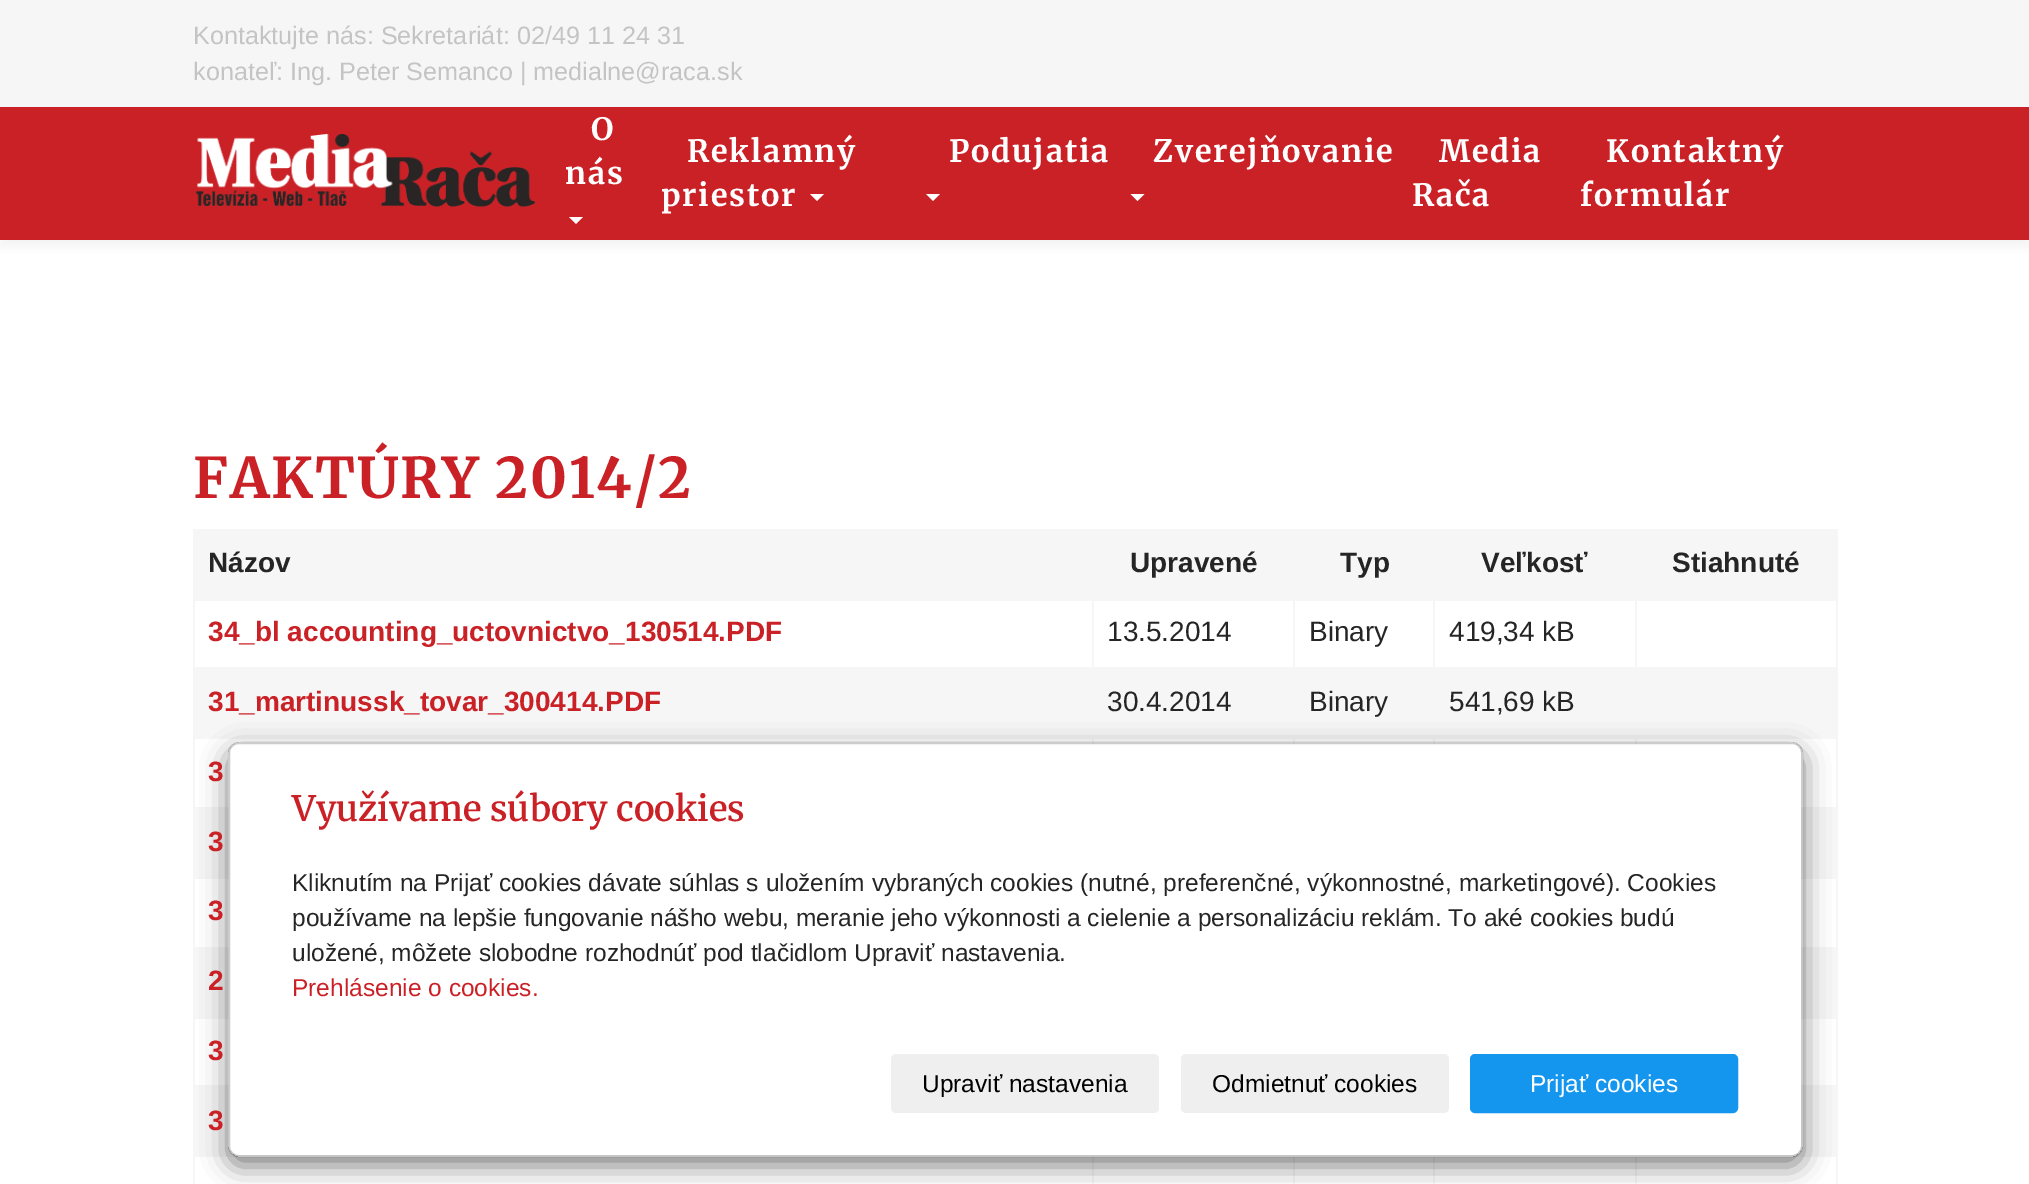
%!PS
<< /PageSize [2029 1184] /PageUsesTransparency true >> setpagedevice
/mt/moveto load def
/li/lineto load def
/ct/curveto load def
/cp/closepath load def
/fl/fill load def
/st/stroke load def
/gs/gsave load def
/gr/grestore load def
/lw/setlinewidth load def
/co { dup -16 bitshift 255 div exch dup -8 bitshift 255 and 255 div exch 255 and 255 div setrgbcolor } def
/fn { [ exch dup neg 0 0 3 -1 roll 0 0 ] selectfont } def
/tx { co fn moveto show } def
/bx { co rectfill } def
/al { dup .setfillconstantalpha .setstrokeconstantalpha } def
/rr { 5 dict begin { /r /h /w /y /x } { exch def } forall
  x r add y moveto x w add y 2 copy h add r arct x w add y h add x 1 index r arct
  x y h add x y r arct x y 2 copy exch w add exch r arct closepath end } def
/sh { 12 dict begin { /a /b /q /h /w /y /x } { exch def } forall gsave /was 0 def
  9 -2 -9 { dup b mul 4 div /e exch def 1 sub .425 mul 2.718 exch exp 1 add a .99 .min exch div /now exch def
    1 1 now sub 1 was sub div sub al /was now def
    w h .min e 2 mul add 0 gt { x e sub y e sub w e 2 mul add h e 2 mul add
      q e add b .6 mul add w h .min 2 div e add .min 0 .max rr fill } if } for grestore end } def
/im { 5 dict begin { /h /w /y /x /name } { exch def } forall
  gsave x y translate w h scale
  w h 8 [w 0 0 h 0 0] name (r) file false 3 colorimage grestore end } def
0 .pushpdf14devicefilter
0 1184 translate 1 -1 scale
4 setmiterlimit
0 0 2029 1184 16#FFFFFF bx
0 0 2029 107 16#F6F6F6 bx
16#323232 co
0 114 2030 133 0 4.5 .05 sh
0 107 2029 133 16#CA2127 bx
(media/1.raw) 195 133 341 74 im
16#FFFFFF co
569 217 mt 583 217 li 576 224 li cp fl
810 194 mt 824 194 li 817 201 li cp fl
926 194 mt 940 194 li 933 201 li cp fl
1130.5 194 mt 1144.5 194 li 1137.5 201 li cp fl
193 529 1645 2 16#F6F6F6 bx
1836 529 2 655 16#F6F6F6 bx
193 529 2 655 16#F6F6F6 bx
195 531 1641 68 16#F6F6F6 bx
1433 599 203 2 16#F6F6F6 bx
193 667 1645 2 16#F6F6F6 bx
1635 599 2 70 16#F6F6F6 bx
1635 599 203 2 16#F6F6F6 bx
1433 599 2 70 16#F6F6F6 bx
1293 599 142 2 16#F6F6F6 bx
1293 599 2 70 16#F6F6F6 bx
1092 599 203 2 16#F6F6F6 bx
1092 599 2 70 16#F6F6F6 bx
193 599 901 2 16#F6F6F6 bx
195 669 1641 70 16#F6F6F6 bx
193 807 1645 2 16#F6F6F6 bx
1092 737 2 7 16#F6F6F6 bx
1293 737 2 7 16#F6F6F6 bx
1635 737 2 7 16#F6F6F6 bx
1433 737 2 7 16#F6F6F6 bx
195 809 1641 68 16#F6F6F6 bx
193 877 1645 2 16#F6F6F6 bx
195 947 1641 70 16#F6F6F6 bx
193 1017 1645 2 16#F6F6F6 bx
193 1085 1645 2 16#F6F6F6 bx
195 1087 1641 70 16#F6F6F6 bx
1092 1155 2 29 16#F6F6F6 bx
1293 1155 2 29 16#F6F6F6 bx
1635 1155 2 29 16#F6F6F6 bx
1433 1155 2 29 16#F6F6F6 bx
gs
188 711 mt 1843 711 li 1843 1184 li 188 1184 li cp 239 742 mt 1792 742 li 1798 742 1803 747 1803 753 ct 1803 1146 li 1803 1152 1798 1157 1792 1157 ct 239 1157 li 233 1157 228 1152 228 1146 ct 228 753 li 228 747 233 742 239 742 ct cp eoclip newpath
16#000000 co
228 751 1575 415 11 13 .5 sh
gr
16#FFFFFF co
229 744 1572 411 9 rr fl
0.2 al
16#000000 co
2 lw
229 743 1573 413 10 rr st
1 al
16#EFEFEF co
891 1054 268 59 5 rr fl
1181 1054 268 59 5 rr fl
16#1496EE co
1471 1055 266 57 4 rr gs fl gr
st
(Kontaktujte nás: Sekretariát: 02/49 11 24 31) 193 44 /LiberationSans-Regular 25.2 16#C4C4C4 tx
(konateľ: Ing. Peter Semanco | medialne@raca.sk) 193 80 /LiberationSans-Regular 25.2 16#C4C4C4 tx
/Merriweather-Bold 30.75 fn
16#FFFFFF co
591 140 mt 1.75 0 (O) ashow
565 184 mt 1.75 0 (nás) ashow
687 162 mt 1.75 0 (Reklamný) ashow
661 206 mt 1.75 0 (priestor) ashow
949 162 mt 1.75 0 (Podujatia) ashow
1153 162 mt 1.75 0 (Zverejňovanie) ashow
1439 162 mt 1.75 0 (Media) ashow
1412 206 mt 1.75 0 (Rača) ashow
1606 162 mt 1.75 0 (Kontaktný) ashow
1580 206 mt 1.75 0 (formulár) ashow
/Merriweather-Bold 56 fn
16#CA2127 co
193 498 mt 1.75 0 (FAKTÚRY 2014/2) ashow
(Názov) 208 572 /LiberationSans-Bold 28 16#252525 tx
(Upravené) 1130 572 /LiberationSans-Bold 28 16#252525 tx
(Typ) 1340 572 /LiberationSans-Bold 28 16#252525 tx
(Veľkosť) 1481 572 /LiberationSans-Bold 28 16#252525 tx
(Stiahnuté) 1672 572 /LiberationSans-Bold 28 16#252525 tx
(34_bl accounting_uctovnictvo_130514.PDF) 208 641 /LiberationSans-Bold 28 16#CA2127 tx
(13.5.2014) 1107 641 /LiberationSans-Regular 28 16#252525 tx
(Binary) 1309 641 /LiberationSans-Regular 28 16#252525 tx
(419,34 kB) 1449 641 /LiberationSans-Regular 28 16#252525 tx
(31_martinussk_tovar_300414.PDF) 208 711 /LiberationSans-Bold 28 16#CA2127 tx
(30.4.2014) 1107 711 /LiberationSans-Regular 28 16#252525 tx
(Binary) 1309 711 /LiberationSans-Regular 28 16#252525 tx
(541,69 kB) 1449 711 /LiberationSans-Regular 28 16#252525 tx
(3) 208 781 /LiberationSans-Bold 28 16#CA2127 tx
(3) 208 851 /LiberationSans-Bold 28 16#CA2127 tx
(3) 208 920 /LiberationSans-Bold 28 16#CA2127 tx
(2) 208 990 /LiberationSans-Bold 28 16#CA2127 tx
(3) 208 1060 /LiberationSans-Bold 28 16#CA2127 tx
(3) 208 1130 /LiberationSans-Bold 28 16#CA2127 tx
(Využívame súbory cookies) 292 821 /Merriweather-SemiBold 35 16#CA2127 tx
(Kliknutím na Prijať cookies dávate súhlas s uložením vybraných cookies \(nutné, preferenčné, výkonnostné, marketingové\). Cookies) 292 891 /LiberationSans-Regular 24.5 16#252525 tx
(používame na lepšie fungovanie nášho webu, meranie jeho výkonnosti a cielenie a personalizáciu reklám. To aké cookies budú) 292 926 /LiberationSans-Regular 24.5 16#252525 tx
(uložené, môžete slobodne rozhodnúť pod tlačidlom Upraviť nastavenia.) 292 961 /LiberationSans-Regular 24.5 16#252525 tx
(Prehlásenie o cookies.) 292 996 /LiberationSans-Regular 24.5 16#CA2127 tx
(Upraviť nastavenia) 922 1092 /LiberationSans-Regular 24.5 16#000000 tx
(Odmietnuť cookies) 1212 1092 /LiberationSans-Regular 24.5 16#000000 tx
(Prijať cookies) 1530 1092 /LiberationSans-Regular 24.5 16#FFFFFF tx
.poppdf14devicefilter showpage
